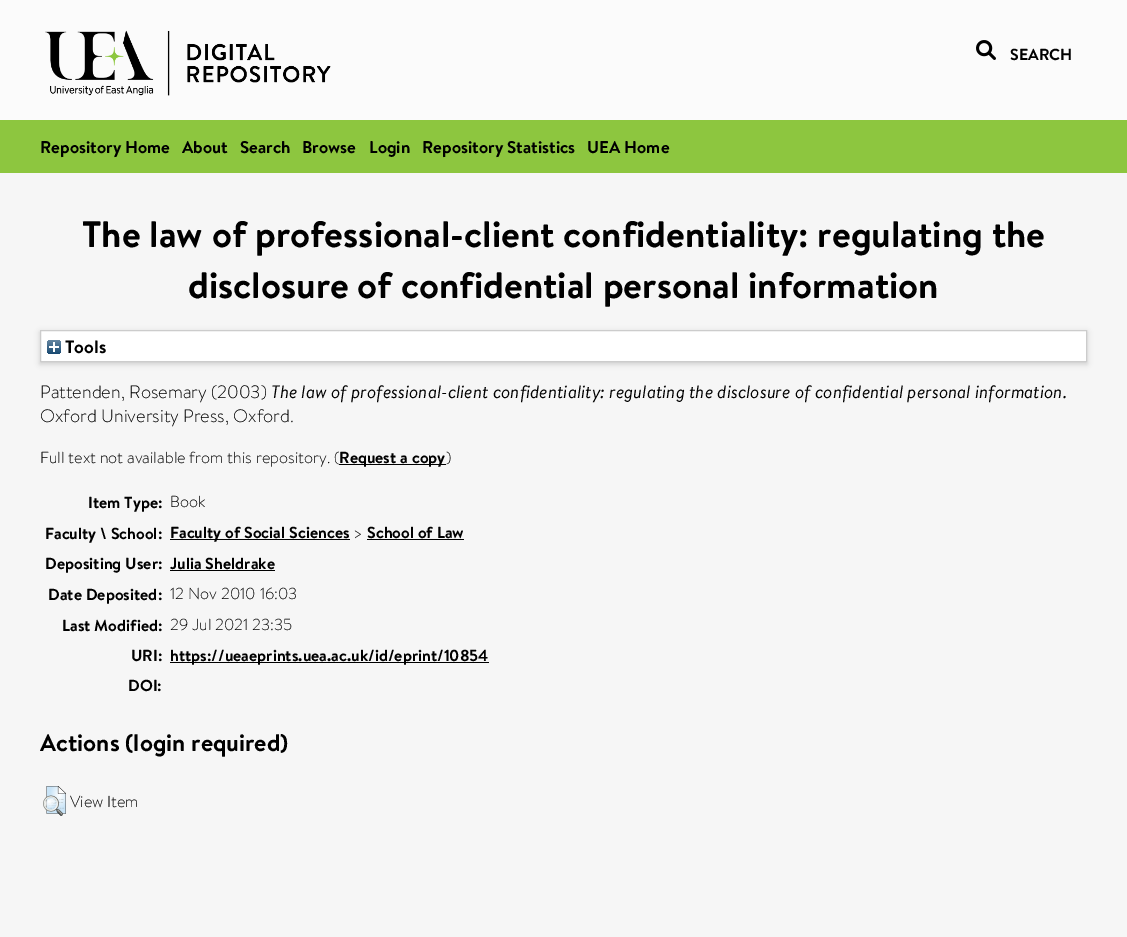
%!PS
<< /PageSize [1127 937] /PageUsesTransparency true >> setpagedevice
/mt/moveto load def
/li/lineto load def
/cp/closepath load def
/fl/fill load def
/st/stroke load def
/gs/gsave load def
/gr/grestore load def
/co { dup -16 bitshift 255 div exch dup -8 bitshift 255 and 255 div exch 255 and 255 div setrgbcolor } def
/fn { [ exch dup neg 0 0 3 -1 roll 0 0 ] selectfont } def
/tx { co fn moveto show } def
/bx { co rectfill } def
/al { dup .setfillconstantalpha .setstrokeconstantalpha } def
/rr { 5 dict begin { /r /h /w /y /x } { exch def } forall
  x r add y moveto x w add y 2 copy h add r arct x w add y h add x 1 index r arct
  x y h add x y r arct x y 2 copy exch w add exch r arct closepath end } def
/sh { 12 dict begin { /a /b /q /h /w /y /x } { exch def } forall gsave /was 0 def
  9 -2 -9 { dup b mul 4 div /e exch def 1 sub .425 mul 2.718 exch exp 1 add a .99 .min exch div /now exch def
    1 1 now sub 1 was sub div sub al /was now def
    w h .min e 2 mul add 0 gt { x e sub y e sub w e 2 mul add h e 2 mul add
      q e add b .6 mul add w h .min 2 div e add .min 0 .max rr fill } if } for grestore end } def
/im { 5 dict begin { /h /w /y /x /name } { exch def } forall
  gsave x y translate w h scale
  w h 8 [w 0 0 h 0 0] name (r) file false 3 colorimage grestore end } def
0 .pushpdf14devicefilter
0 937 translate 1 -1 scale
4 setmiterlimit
0 0 1127 937 16#F6F6F6 bx
0 0 1127 120 16#FBFBFB bx
(media/1.raw) 45 30 286 66 im
(media/2.raw) 976 40 20 20 im
0 120 1127 53 16#8DC63F bx
16#646464 co
40 332 1047 32 0 3 .3 sh
16#FFFFFF co
40.5 330.5 mt 1086.5 330.5 li 1086.5 361.5 li 40.5 361.5 li cp gs fl gr
16#CCCCCC co
st
(media/3.raw) 47 340 14 14 im
339 464 107 1 16#000000 bx
170 539 180 1 16#000000 bx
367 539 97 1 16#000000 bx
170 570 105 1 16#000000 bx
170 662 319 1 16#000000 bx
(media/4.raw) 43 786 23 30 im
(SEARCH) 1010 60 /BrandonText-Bold 16 16#000000 tx
(Repository Home) 40 153 /BrandonText-Bold 17 16#000000 tx
(About) 182 153 /BrandonText-Bold 17 16#000000 tx
(Search) 240 153 /BrandonText-Bold 17 16#000000 tx
(Browse) 302 153 /BrandonText-Bold 17 16#000000 tx
(Login) 369 153 /BrandonText-Bold 17 16#000000 tx
(Repository Statistics) 422 153 /BrandonText-Bold 17 16#000000 tx
(UEA Home) 587 153 /BrandonText-Bold 17 16#000000 tx
(The law of professional-client confidentiality: regulating the) 82 247 /BrandonText-Bold 36.8 16#000000 tx
(disclosure of confidential personal information) 188 298 /BrandonText-Bold 36.8 16#000000 tx
(Tools) 65 353 /BrandonText-Bold 18 16#000000 tx
(Pattenden, Rosemary \(2003\)) 40 398 /BrandonText-Light 18 16#000000 tx
(The law of professional-client confidentiality: regulating the disclosure of confidential personal information.) 271 398 /BrandonText-Italic 18 16#000000 tx
(Oxford University Press, Oxford.) 40 422 /BrandonText-Light 18 16#000000 tx
(Full text not available from this repository. \() 40 463 /BrandonText-Light 16 16#000000 tx
(Request a copy) 339 463 /BrandonText-Bold 16 16#000000 tx
(\)) 446 463 /BrandonText-Light 16 16#000000 tx
(Item Type:) 88 508 /BrandonText-Bold 16 16#000000 tx
(Book) 170 507 /BrandonText-Light 16 16#000000 tx
(Faculty \\ School:) 45 539 /BrandonText-Bold 16 16#000000 tx
(Faculty of Social Sciences) 170 538 /BrandonText-Bold 16 16#000000 tx
(>) 353 538 /BrandonText-Light 16 16#000000 tx
(School of Law) 367 538 /BrandonText-Bold 16 16#000000 tx
(Depositing User:) 45 569 /BrandonText-Bold 16 16#000000 tx
(Julia Sheldrake) 170 569 /BrandonText-Bold 16 16#000000 tx
(Date Deposited:) 48 600 /BrandonText-Bold 16 16#000000 tx
(12 Nov 2010 16:03) 170 599 /BrandonText-Light 16 16#000000 tx
(Last Modified:) 62 631 /BrandonText-Bold 16 16#000000 tx
(29 Jul 2021 23:35) 170 630 /BrandonText-Light 16 16#000000 tx
(URI:) 131 661 /BrandonText-Bold 16 16#000000 tx
(https://ueaeprints.uea.ac.uk/id/eprint/10854) 170 661 /BrandonText-Bold 16 16#000000 tx
(DOI:) 128 691 /BrandonText-Bold 16 16#000000 tx
(Actions \(login required\)) 40 751 /BrandonText-Bold 24 16#000000 tx
(View Item) 70 807 /BrandonText-Light 16 16#000000 tx
.poppdf14devicefilter showpage
